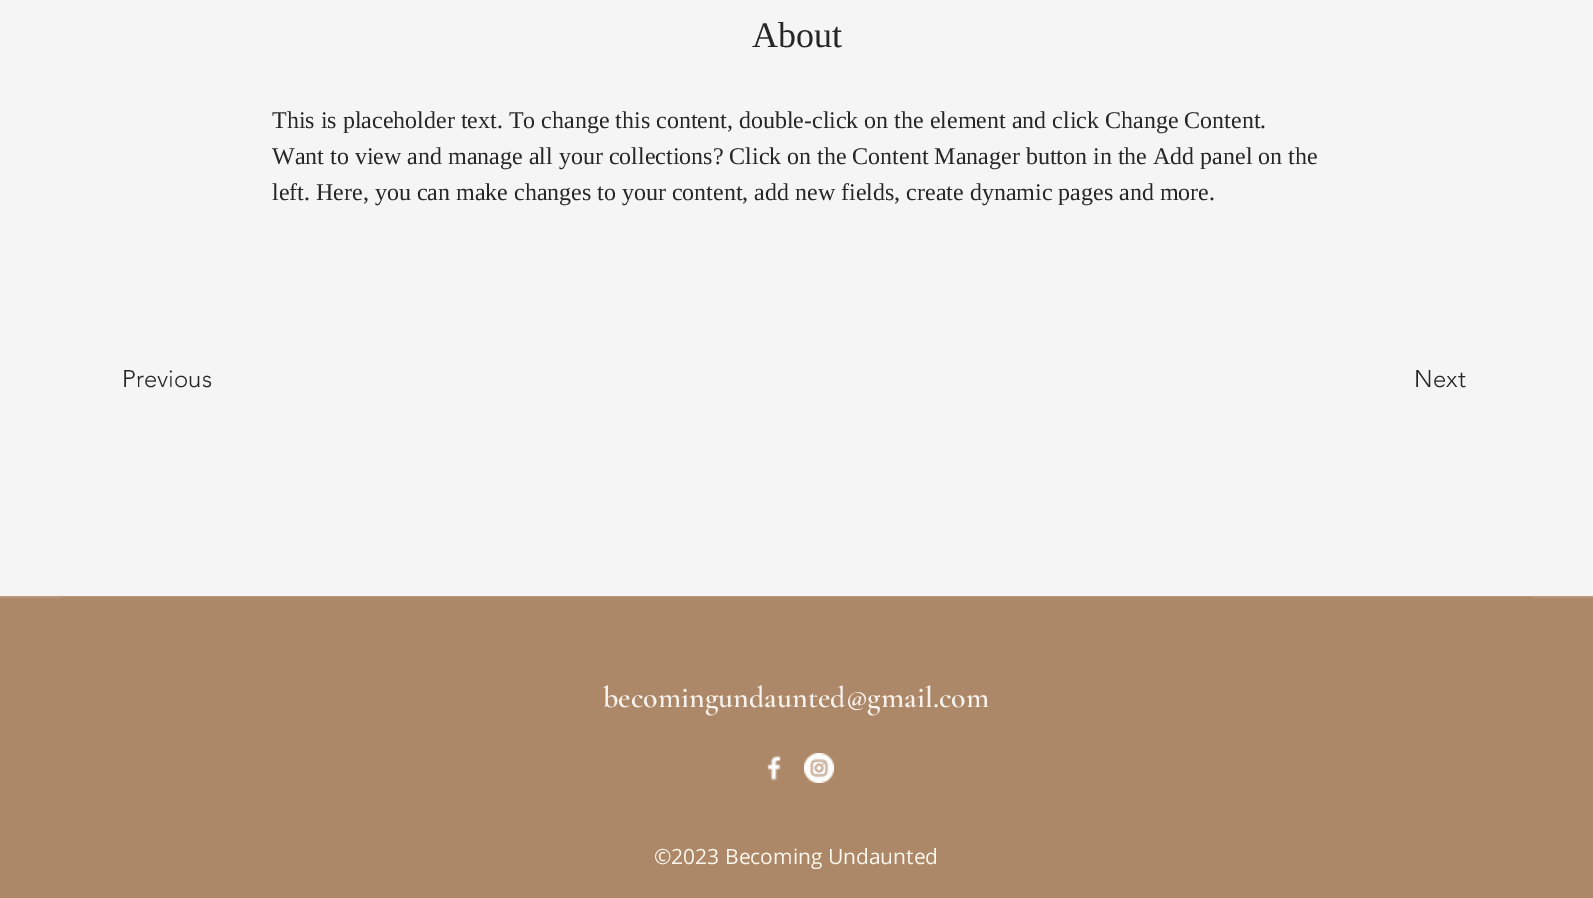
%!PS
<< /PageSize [1593 898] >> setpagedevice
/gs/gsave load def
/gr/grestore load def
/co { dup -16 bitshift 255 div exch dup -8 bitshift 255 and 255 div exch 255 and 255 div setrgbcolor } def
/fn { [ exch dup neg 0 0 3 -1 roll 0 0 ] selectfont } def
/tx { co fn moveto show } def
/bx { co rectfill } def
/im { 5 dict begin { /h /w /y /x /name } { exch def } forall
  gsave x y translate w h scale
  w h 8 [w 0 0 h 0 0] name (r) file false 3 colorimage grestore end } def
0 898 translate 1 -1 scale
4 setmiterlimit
0 0 1593 898 16#F5F5F5 bx
0 598 1593 300 16#AC8869 bx
0 596 1593 2 16#B7987E bx
62 597 1470 1 16#AC8869 bx
(media/1.raw) 767 755 14 26 im
(media/2.raw) 804 753 30 30 im
(About) 752 47 /LiberationSerif-Regular 36 16#262626 tx
gs
272 102 1050 108 rectclip
(This is placeholder text. To change this content, double-click on the element and click Change Content.) 272 128 /LiberationSerif-Regular 24 16#262626 tx
gr
(Want to view and manage all your collections? Click on the Content Manager button in the Add panel on the) 272 164 /LiberationSerif-Regular 24 16#262626 tx
(left. Here, you can make changes to your content, add new fields, create dynamic pages and more.) 272 200 /LiberationSerif-Regular 24 16#262626 tx
(Previous) 122 387 /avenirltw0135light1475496-Light 24 16#262626 tx
(Next) 1414 387 /avenirltw0135light1475496-Light 24 16#262626 tx
(becomingundaunted@gmail.com) 603 707 /CormorantGaramond-SemiBold 30 16#F7F2ED tx
(©2023 Becoming Undaunted) 654 864 /OpenSans-Regular 21 16#FCF8ED tx
showpage
